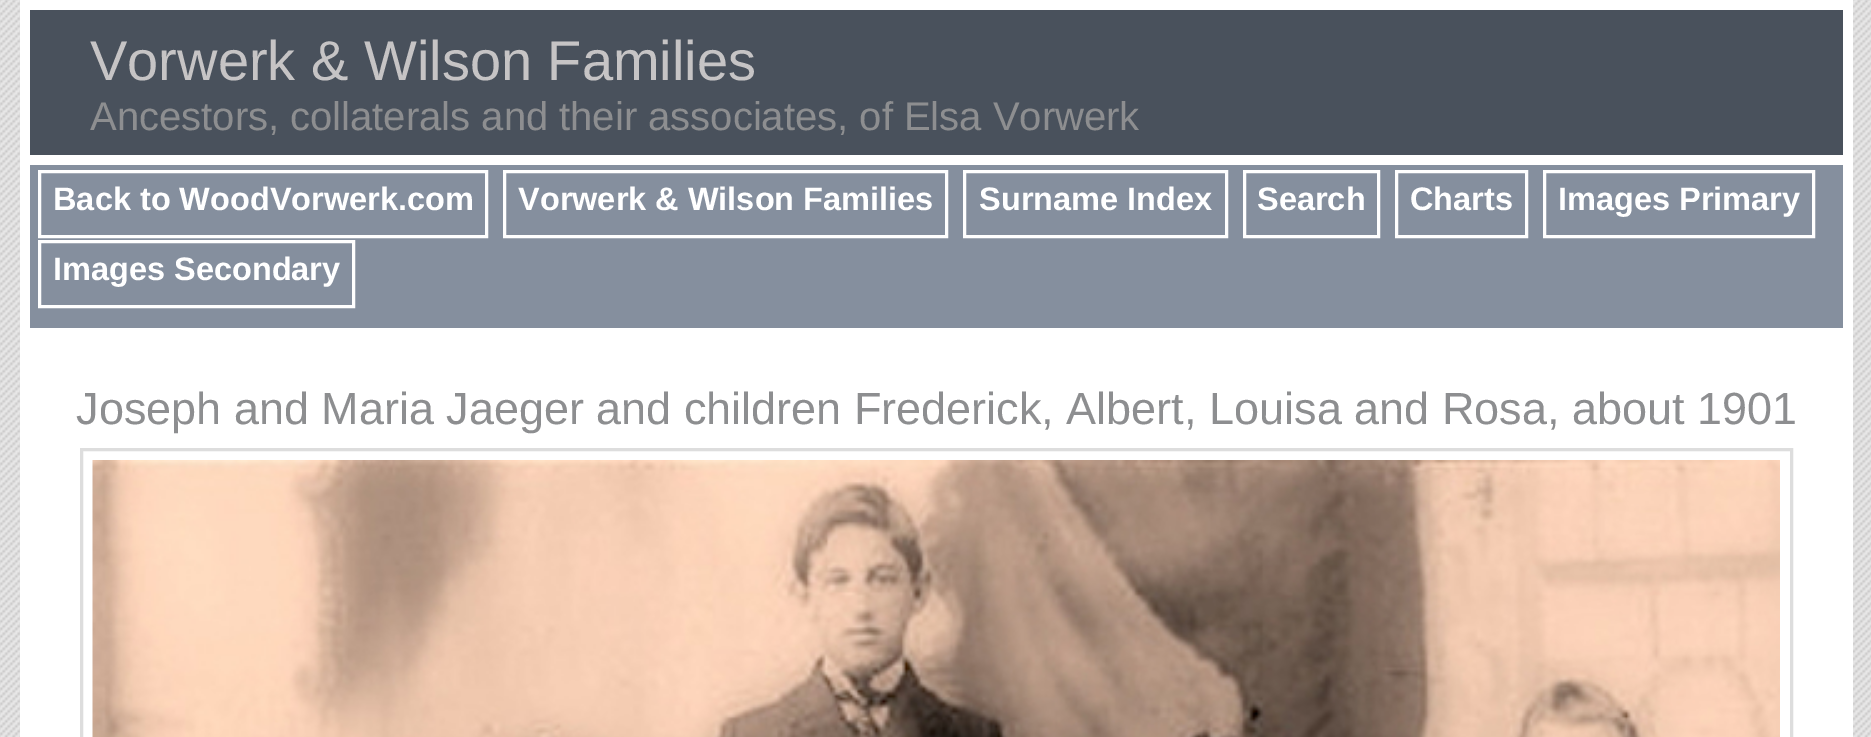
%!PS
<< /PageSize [1871 737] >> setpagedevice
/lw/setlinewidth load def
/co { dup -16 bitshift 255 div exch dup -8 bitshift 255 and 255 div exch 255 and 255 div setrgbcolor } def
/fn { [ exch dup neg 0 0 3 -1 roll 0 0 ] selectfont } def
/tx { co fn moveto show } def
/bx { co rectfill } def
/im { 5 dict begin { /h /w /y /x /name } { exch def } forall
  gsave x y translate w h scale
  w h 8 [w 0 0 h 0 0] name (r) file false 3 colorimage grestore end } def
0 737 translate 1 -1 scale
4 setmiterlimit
0 0 1871 737 16#FFFFFF bx
(media/1.raw) 0 0 1871 737 im
20 0 1833 737 16#FFFFFF bx
30 10 1813 145 16#49515C bx
30 165 1813 163 16#858F9E bx
16#FFFFFF co
3 lw
39.5 171.5 447 65 rectstroke
504.5 171.5 442 65 rectstroke
964.5 171.5 262 65 rectstroke
1244.5 171.5 134 65 rectstroke
1396.5 171.5 130 65 rectstroke
1544.5 171.5 269 65 rectstroke
39.5 241.5 314 65 rectstroke
16#DDDDDD co
81.5 449.5 1710 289 rectstroke
(media/2.raw) 92 460 1688 277 im
(Vorwerk & Wilson Families) 90 80 /LiberationSans-Regular 56 16#C6C4C5 tx
(Ancestors, collaterals and their associates, of Elsa Vorwerk) 90 130 /LiberationSans-Regular 40 16#8D8E90 tx
(Back to WoodVorwerk.com) 53 210 /LiberationSans-Bold 32.5 16#FFFFFF tx
(Vorwerk & Wilson Families) 518 210 /LiberationSans-Bold 32.5 16#FFFFFF tx
(Surname Index) 979 210 /LiberationSans-Bold 32.5 16#FFFFFF tx
(Search) 1257 210 /LiberationSans-Bold 32.5 16#FFFFFF tx
(Charts) 1410 210 /LiberationSans-Bold 32.5 16#FFFFFF tx
(Images Primary) 1558 210 /LiberationSans-Bold 32.5 16#FFFFFF tx
(Images Secondary) 53 280 /LiberationSans-Bold 32.5 16#FFFFFF tx
(Joseph and Maria Jaeger and children Frederick, Albert, Louisa and Rosa, about 1901) 76 424 /LiberationSans-Regular 45 16#8D8E90 tx
showpage
